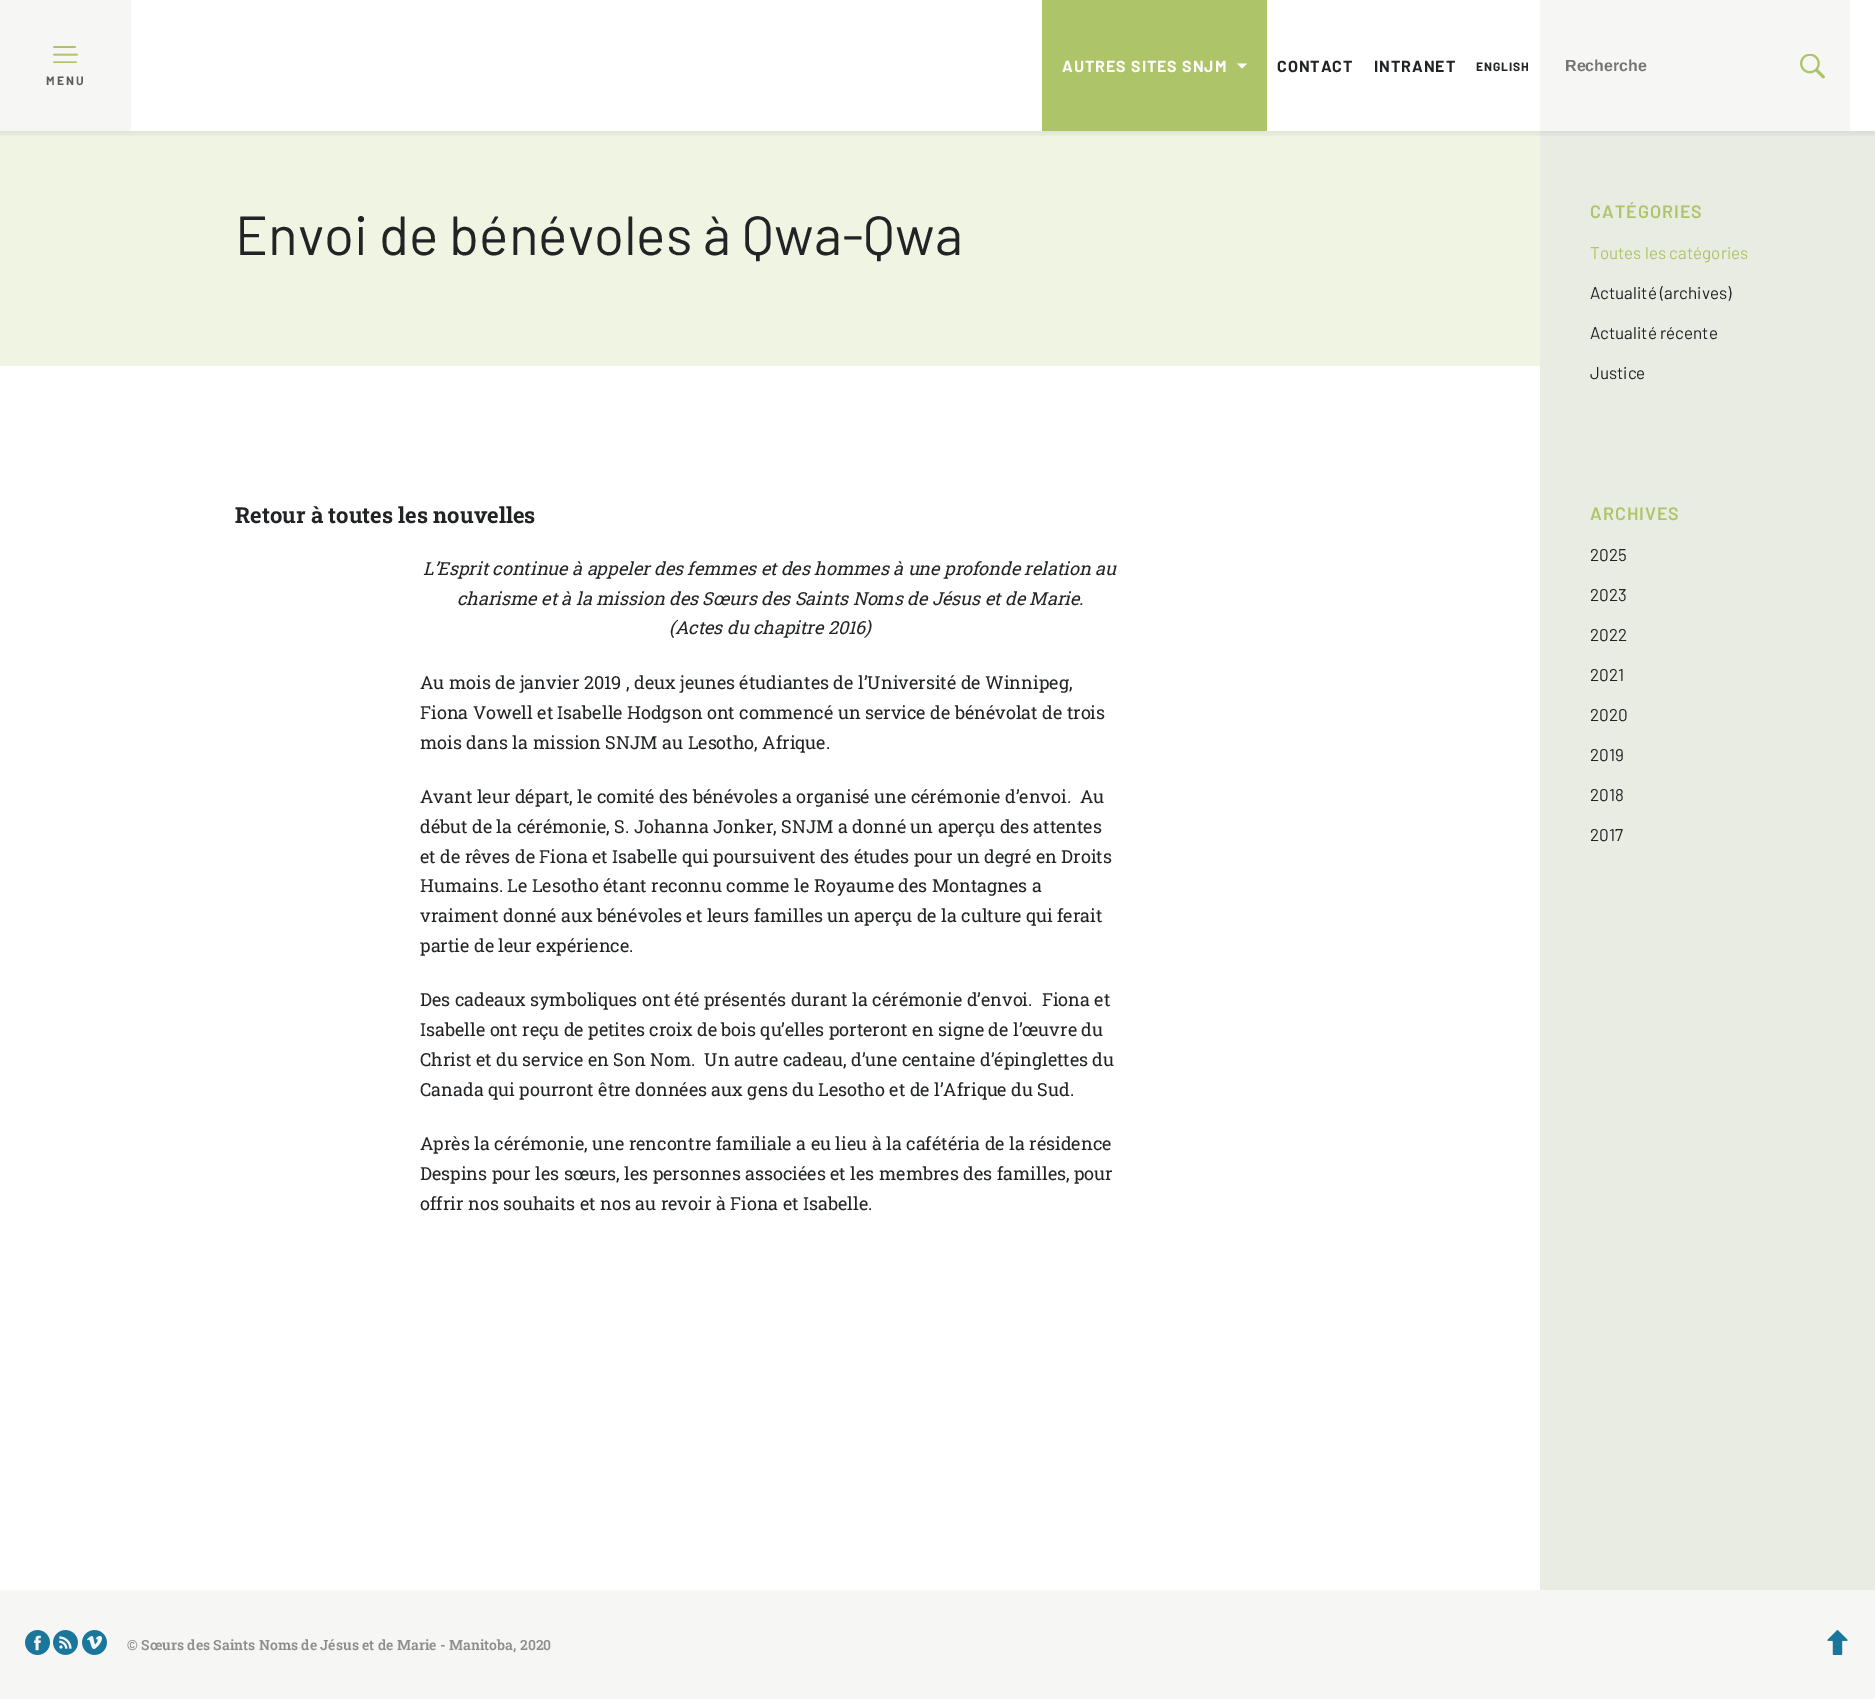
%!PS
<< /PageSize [1875 1700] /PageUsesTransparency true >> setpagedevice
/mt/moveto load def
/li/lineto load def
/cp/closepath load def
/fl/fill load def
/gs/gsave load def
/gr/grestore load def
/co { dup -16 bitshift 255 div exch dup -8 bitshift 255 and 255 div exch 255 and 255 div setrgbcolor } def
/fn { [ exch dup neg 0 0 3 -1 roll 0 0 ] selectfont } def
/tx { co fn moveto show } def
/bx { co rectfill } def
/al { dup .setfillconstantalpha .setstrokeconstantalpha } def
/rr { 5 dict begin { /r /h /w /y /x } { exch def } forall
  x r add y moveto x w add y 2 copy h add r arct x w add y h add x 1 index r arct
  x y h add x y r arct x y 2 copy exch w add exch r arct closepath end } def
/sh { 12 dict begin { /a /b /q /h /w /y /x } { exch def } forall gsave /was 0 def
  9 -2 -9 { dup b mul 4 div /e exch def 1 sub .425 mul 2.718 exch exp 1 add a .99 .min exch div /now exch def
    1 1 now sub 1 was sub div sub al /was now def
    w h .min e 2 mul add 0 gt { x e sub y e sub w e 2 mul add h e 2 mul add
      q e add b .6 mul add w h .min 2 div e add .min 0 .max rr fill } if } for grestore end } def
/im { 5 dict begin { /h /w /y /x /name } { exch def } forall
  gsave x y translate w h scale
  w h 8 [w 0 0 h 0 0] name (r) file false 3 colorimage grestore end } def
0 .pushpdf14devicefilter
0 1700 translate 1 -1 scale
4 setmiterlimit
0 0 1875 1700 16#FFFFFF bx
0 131 1540 235 16#F0F4E2 bx
1540 131 335 1459 16#E9ECE3 bx
gs
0 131 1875 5 rectclip
16#000000 co
0 3 1875 131 0 4 .07 sh
gr
1042 0 225 131 16#AEC468 bx
16#FFFFFF co
1237 63.5 mt 1247 63.5 li 1242 68.5 li cp fl
1540 0 310 131 16#F6F7F4 bx
(media/1.raw) 1800 54 25 25 im
0 0 131 131 16#F6F7F4 bx
(media/2.raw) 53 46 25 17 im
0 1590 1875 109 16#F6F7F4 bx
(media/3.raw) 25 1630 25 25 im
(media/4.raw) 53 1630 25 25 im
(media/5.raw) 82 1630 25 25 im
(media/6.raw) 1827 1630 21 25 im
/Barlow-Bold 16 fn
16#FFFFFF co
1062 72 mt 1 0 (AUTRES SITES SNJM) ashow
16#212325 co
1277 72 mt 1 0 (CONTACT) ashow
1374 72 mt 1 0 (INTRANET) ashow
/Barlow-Bold 12 fn
1476 71 mt 1 0 (ENGLISH) ashow
(Recherche) 1565 71 /LiberationSans-Bold 16 16#757575 tx
/Barlow-Bold 12 fn
16#5A5C57 co
46 85 mt 2 0 (MENU) ashow
(Envoi de bénévoles à Qwa-Qwa) 235 255 /Barlow-Regular 55 16#212325 tx
/Barlow-SemiBold 18 fn
16#AEC468 co
1590 218 mt 1 0 (CATÉGORIES) ashow
(Toutes les catégories) 1590 259 /Barlow-Regular 17 16#AEC468 tx
(Actualité \(archives\)) 1590 299 /Barlow-Regular 17 16#212325 tx
(Actualité récente) 1590 339 /Barlow-Regular 17 16#212325 tx
(Justice) 1590 379 /Barlow-Regular 17 16#212325 tx
/Barlow-SemiBold 18 fn
16#AEC468 co
1590 520 mt 1 0 (ARCHIVES) ashow
(2025) 1590 561 /Barlow-Regular 17 16#212325 tx
(2023) 1590 601 /Barlow-Regular 17 16#212325 tx
(2022) 1590 641 /Barlow-Regular 17 16#212325 tx
(2021) 1590 681 /Barlow-Regular 17 16#212325 tx
(2020) 1590 721 /Barlow-Regular 17 16#212325 tx
(2019) 1590 761 /Barlow-Regular 17 16#212325 tx
(2018) 1590 801 /Barlow-Regular 17 16#212325 tx
(2017) 1590 841 /Barlow-Regular 17 16#212325 tx
(Retour à toutes les nouvelles) 235 523 /RobotoSlab-Bold 22 16#212325 tx
(L’Esprit continue à appeler des femmes et des hommes à une profonde relation au) 423 575 /RobotoSlab-Italic 18 16#212325 tx
(charisme et à la mission des Sœurs des Saints Noms de Jésus et de Marie.) 457 605 /RobotoSlab-Italic 18 16#212325 tx
(\(Actes du chapitre 2016\)) 669 634 /RobotoSlab-Italic 18 16#212325 tx
(Au mois de janvier 2019 , deux jeunes étudiantes de l’Université de Winnipeg,) 420 689 /RobotoSlab-Regular 18 16#212325 tx
(Fiona Vowell et Isabelle Hodgson ont commencé un service de bénévolat de trois) 420 719 /RobotoSlab-Regular 18 16#212325 tx
(mois dans la mission SNJM au Lesotho, Afrique.) 420 749 /RobotoSlab-Regular 18 16#212325 tx
(Avant leur départ, le comité des bénévoles a organisé une cérémonie d’envoi.  Au) 420 803 /RobotoSlab-Regular 18 16#212325 tx
(début de la cérémonie, S. Johanna Jonker, SNJM a donné un aperçu des attentes) 420 833 /RobotoSlab-Regular 18 16#212325 tx
(et de rêves de Fiona et Isabelle qui poursuivent des études pour un degré en Droits) 420 863 /RobotoSlab-Regular 18 16#212325 tx
(Humains. Le Lesotho étant reconnu comme le Royaume des Montagnes a) 420 892 /RobotoSlab-Regular 18 16#212325 tx
(vraiment donné aux bénévoles et leurs familles un aperçu de la culture qui ferait) 420 922 /RobotoSlab-Regular 18 16#212325 tx
(partie de leur expérience.) 420 952 /RobotoSlab-Regular 18 16#212325 tx
(Des cadeaux symboliques ont été présentés durant la cérémonie d’envoi.  Fiona et) 420 1006 /RobotoSlab-Regular 18 16#212325 tx
(Isabelle ont reçu de petites croix de bois qu’elles porteront en signe de l’œuvre du) 420 1036 /RobotoSlab-Regular 18 16#212325 tx
(Christ et du service en Son Nom.  Un autre cadeau, d’une centaine d’épinglettes du) 420 1066 /RobotoSlab-Regular 18 16#212325 tx
(Canada qui pourront être données aux gens du Lesotho et de l’Afrique du Sud.) 420 1096 /RobotoSlab-Regular 18 16#212325 tx
(Après la cérémonie, une rencontre familiale a eu lieu à la cafétéria de la résidence) 420 1150 /RobotoSlab-Regular 18 16#212325 tx
(Despins pour les sœurs, les personnes associées et les membres des familles, pour) 420 1180 /RobotoSlab-Regular 18 16#212325 tx
(offrir nos souhaits et nos au revoir à Fiona et Isabelle.) 420 1210 /RobotoSlab-Regular 18 16#212325 tx
(© Sœurs des Saints Noms de Jésus et de Marie - Manitoba, 2020) 127 1650 /RobotoSlab-SemiBold 14 16#8E8E8E tx
.poppdf14devicefilter showpage
